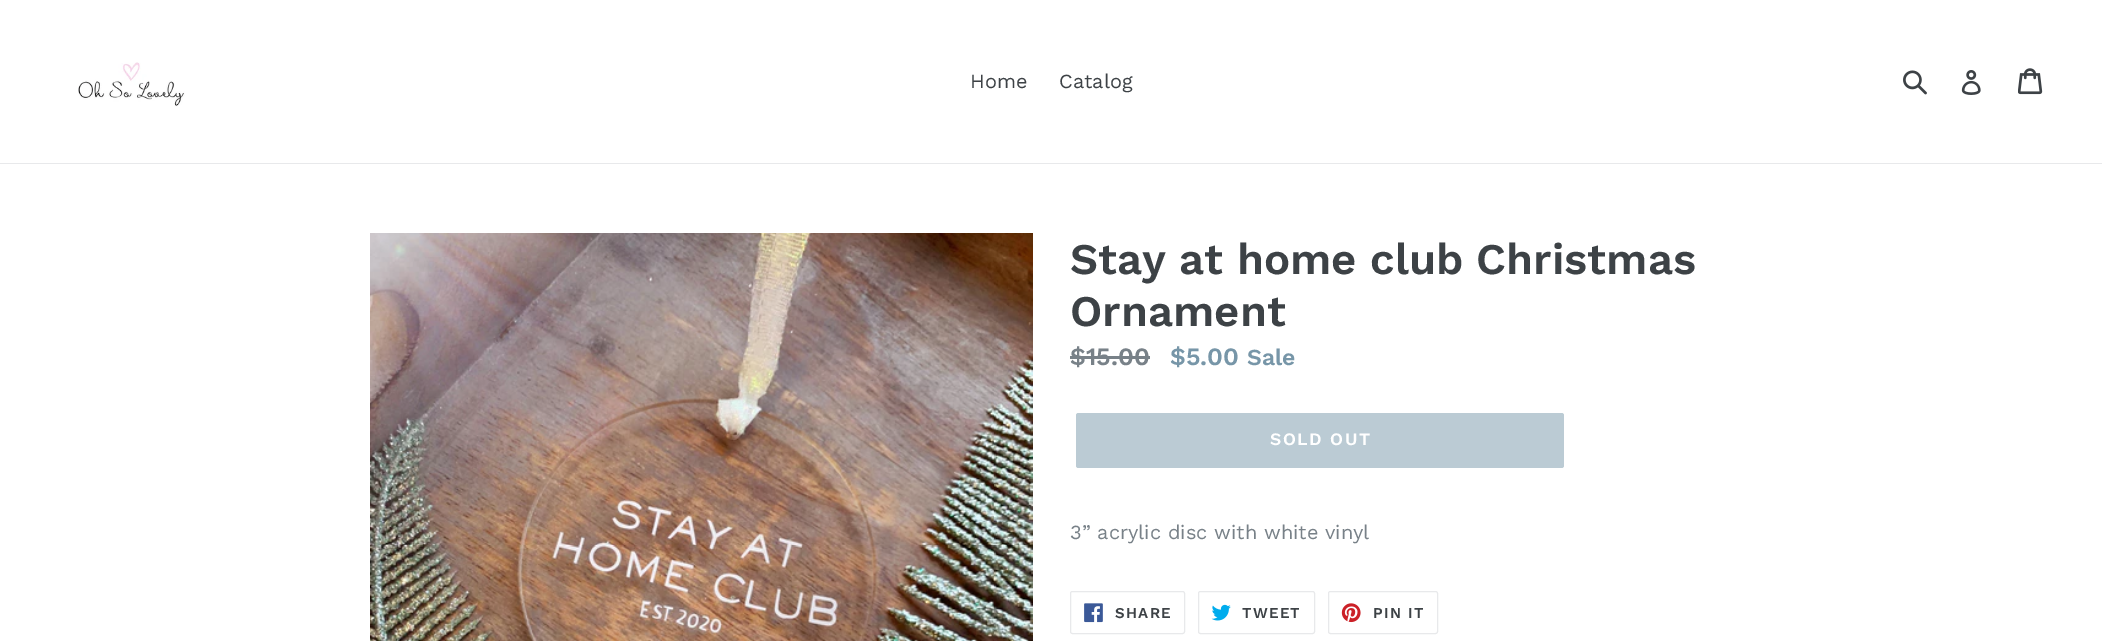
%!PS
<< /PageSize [2102 641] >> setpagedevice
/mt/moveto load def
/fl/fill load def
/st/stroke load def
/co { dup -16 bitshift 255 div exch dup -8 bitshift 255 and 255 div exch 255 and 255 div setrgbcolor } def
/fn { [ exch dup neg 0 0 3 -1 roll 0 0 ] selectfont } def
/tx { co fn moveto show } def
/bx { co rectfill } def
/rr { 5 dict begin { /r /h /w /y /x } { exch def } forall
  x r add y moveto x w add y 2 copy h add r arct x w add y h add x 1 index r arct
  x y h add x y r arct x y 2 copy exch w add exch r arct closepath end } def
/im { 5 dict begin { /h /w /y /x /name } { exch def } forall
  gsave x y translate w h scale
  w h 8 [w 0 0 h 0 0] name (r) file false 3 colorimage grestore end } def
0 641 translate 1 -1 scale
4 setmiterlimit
0 0 2102 641 16#FFFFFF bx
0 163 2102 1 16#E8E9EB bx
(media/1.raw) 78 62 107 45 im
(media/2.raw) 1903 70 24 25 im
(media/3.raw) 1961 70 20 25 im
(media/4.raw) 2018 68 25 27 im
(media/5.raw) 370 233 663 408 im
1070 356 80 3 16#788188 bx
16#BBCBD4 co
1076 413 488 55 2.5 rr fl
16#E8E9EB co
1070.5 591.5 114 42 2 rr st
(media/6.raw) 1084 603 19 20 im
1198.5 591.5 116 42 2 rr st
(media/7.raw) 1211 604 20 17 im
1328.5 591.5 109 42 2 rr st
(media/8.raw) 1341 603 20 20 im
(Home) 970 88 /WorkSans-Regular 20 16#3D4246 tx
(Catalog) 1059 88 /WorkSans-Regular 20 16#3D4246 tx
(Stay at home club Christmas) 1070 274 /WorkSans-SemiBold 43.75 16#3D4246 tx
(Ornament) 1070 326 /WorkSans-SemiBold 43.75 16#3D4246 tx
($15.00) 1070 365 /WorkSans-SemiBold 25 16#788188 tx
($5.00) 1170 365 /WorkSans-SemiBold 25 16#7796A8 tx
(Sale) 1247 365 /WorkSans-SemiBold 23 16#7796A8 tx
/WorkSans-SemiBold 17.5 fn
16#FFFFFF co
1270 445 mt 1.5 0 (SOLD OUT) ashow
(3” acrylic disc with white vinyl) 1070 539 /WorkSans-Regular 20 16#788188 tx
/WorkSans-SemiBold 15 fn
16#3D4246 co
1115 618 mt 1.25 0 (SHARE) ashow
1242 618 mt 1.25 0 (TWEET) ashow
1373 618 mt 1.25 0 (PIN IT) ashow
showpage
